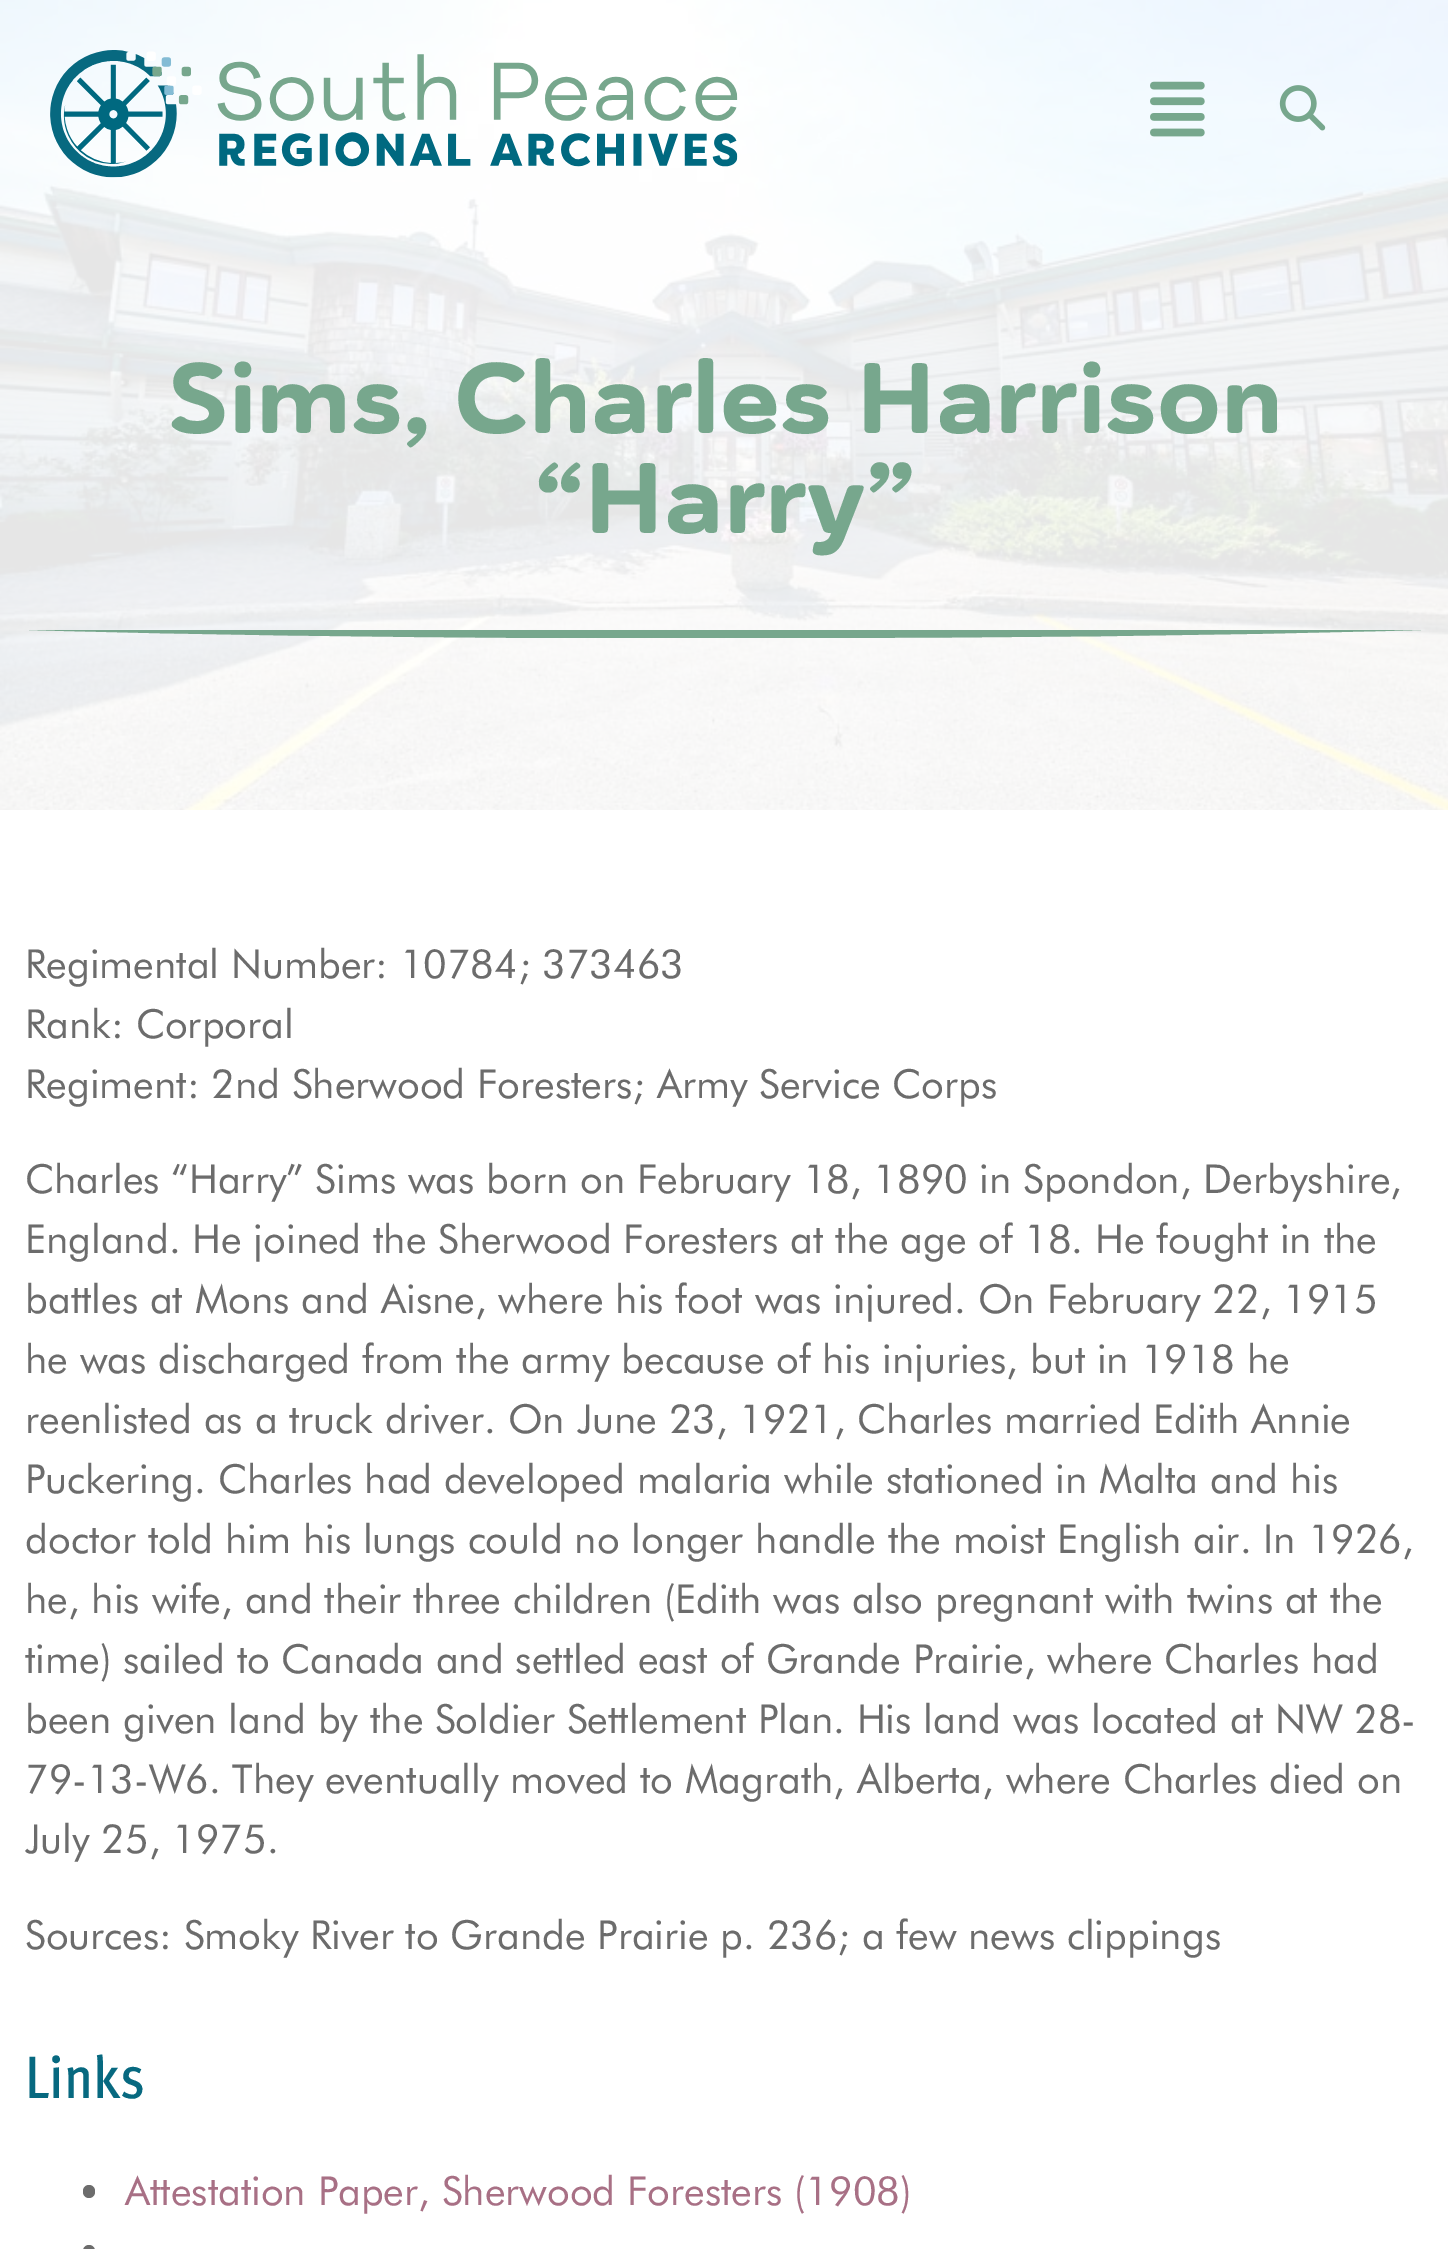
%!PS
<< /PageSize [1448 2249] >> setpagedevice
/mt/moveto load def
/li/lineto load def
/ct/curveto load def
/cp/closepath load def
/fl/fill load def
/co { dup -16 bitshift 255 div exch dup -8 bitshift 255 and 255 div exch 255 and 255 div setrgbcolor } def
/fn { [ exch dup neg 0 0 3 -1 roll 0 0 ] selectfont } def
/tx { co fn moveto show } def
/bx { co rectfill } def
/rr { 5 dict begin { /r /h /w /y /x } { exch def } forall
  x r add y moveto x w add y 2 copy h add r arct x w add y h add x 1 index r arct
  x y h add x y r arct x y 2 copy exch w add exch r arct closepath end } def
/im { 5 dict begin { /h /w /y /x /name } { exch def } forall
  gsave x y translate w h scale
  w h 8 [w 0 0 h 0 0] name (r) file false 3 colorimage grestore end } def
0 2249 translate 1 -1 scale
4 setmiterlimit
0 0 1448 2249 16#FFFFFF bx
(media/4.raw) 0 0 1448 810 im
(media/1.raw) 50 50 688 128 im
(media/2.raw) 1150 81 55 56 im
(media/3.raw) 1279 85 47 46 im
16#77A78D co
29 630 mt 201 635 374 637 546 638 ct 781 638 li 994 638 1208 636 1421 630 ct cp fl
16#6C6C6C co
83 2185 12 13 6 rr fl
83 2245 12 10 6 rr fl
(Sims, Charles Harrison) 168 433 /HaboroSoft-Black 100 16#77A78D tx
(“Harry”) 534 533 /HaboroSoft-Black 100 16#77A78D tx
(Regimental Number: 10784; 373463) 25 978 /Futura-Regular 40 16#6C6C6C tx
(Rank: Corporal) 25 1038 /Futura-Regular 40 16#6C6C6C tx
(Regiment: 2nd Sherwood Foresters; Army Service Corps) 25 1098 /Futura-Regular 40 16#6C6C6C tx
(Charles “Harry” Sims was born on February 18, 1890 in Spondon, Derbyshire,) 25 1193 /Futura-Regular 40 16#6C6C6C tx
(England. He joined the Sherwood Foresters at the age of 18. He fought in the) 25 1253 /Futura-Regular 40 16#6C6C6C tx
(battles at Mons and Aisne, where his foot was injured. On February 22, 1915) 25 1313 /Futura-Regular 40 16#6C6C6C tx
(he was discharged from the army because of his injuries, but in 1918 he) 25 1373 /Futura-Regular 40 16#6C6C6C tx
(reenlisted as a truck driver. On June 23, 1921, Charles married Edith Annie) 25 1433 /Futura-Regular 40 16#6C6C6C tx
(Puckering. Charles had developed malaria while stationed in Malta and his) 25 1493 /Futura-Regular 40 16#6C6C6C tx
(doctor told him his lungs could no longer handle the moist English air. In 1926,) 25 1553 /Futura-Regular 40 16#6C6C6C tx
(he, his wife, and their three children \(Edith was also pregnant with twins at the) 25 1613 /Futura-Regular 40 16#6C6C6C tx
(time\) sailed to Canada and settled east of Grande Prairie, where Charles had) 25 1673 /Futura-Regular 40 16#6C6C6C tx
(been given land by the Soldier Settlement Plan. His land was located at NW 28-) 25 1733 /Futura-Regular 40 16#6C6C6C tx
(79-13-W6. They eventually moved to Magrath, Alberta, where Charles died on) 25 1793 /Futura-Regular 40 16#6C6C6C tx
(July 25, 1975.) 25 1853 /Futura-Regular 40 16#6C6C6C tx
(Sources: Smoky River to Grande Prairie p. 236; a few news clippings) 25 1949 /Futura-Regular 40 16#6C6C6C tx
(Links) 25 2098 /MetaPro-Medium 60 16#076980 tx
(Attestation Paper, Sherwood Foresters \(1908\)) 125 2205 /Futura-Regular 40 16#A87085 tx
showpage
